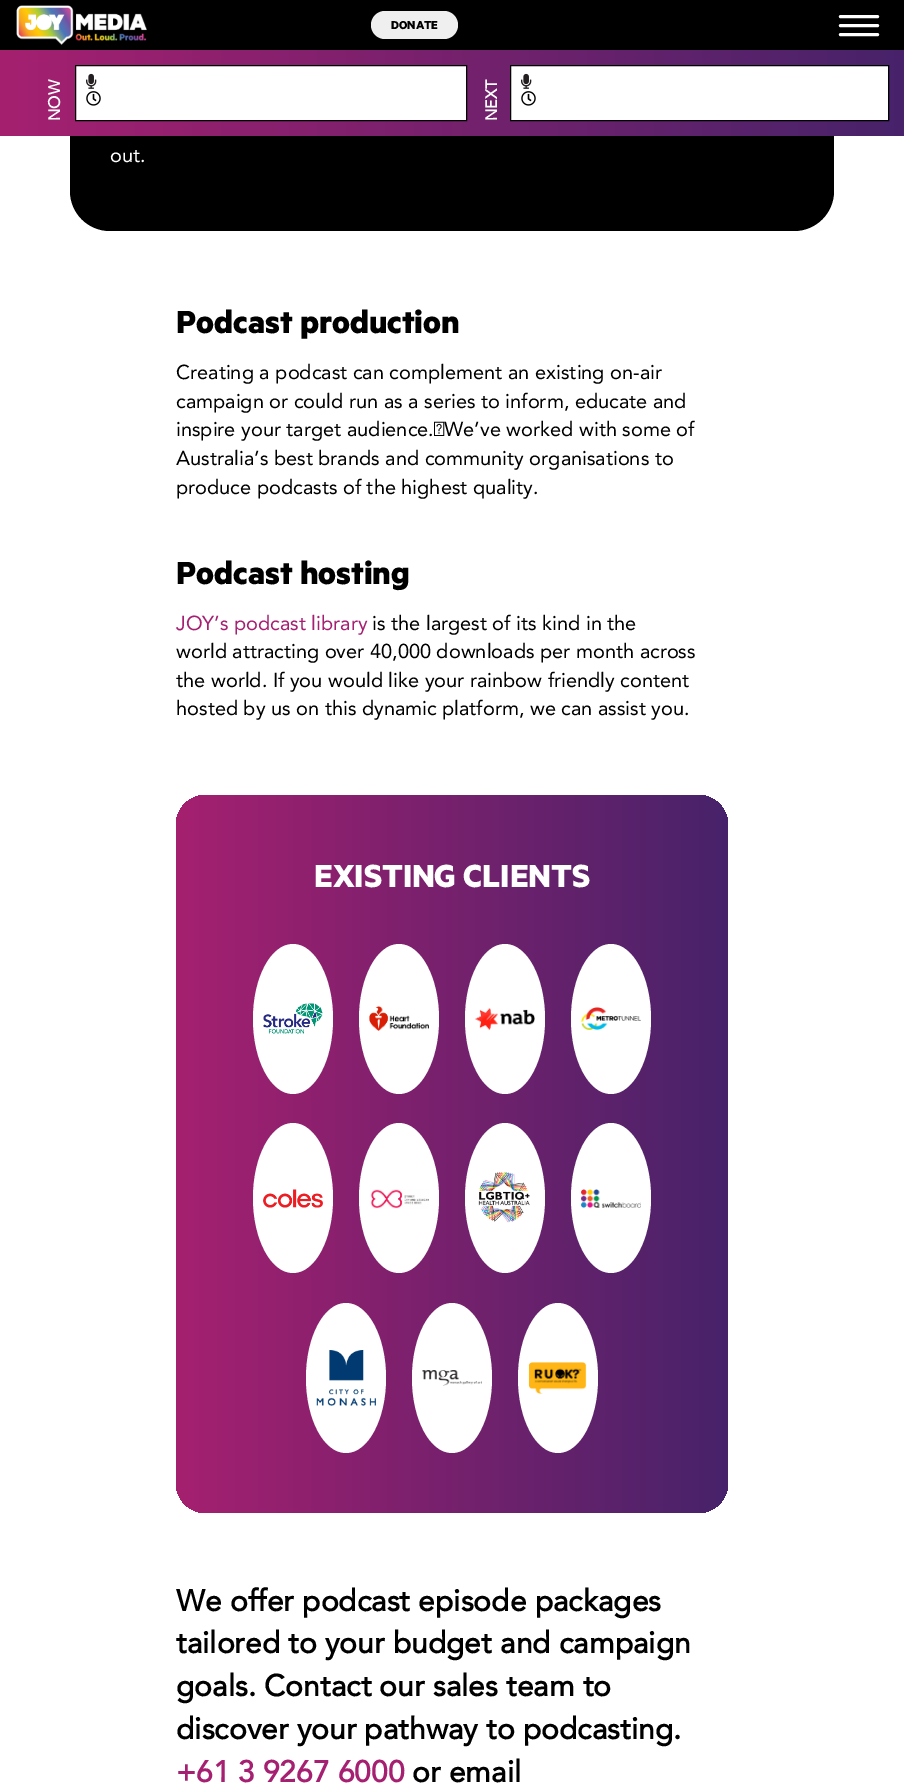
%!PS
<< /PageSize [904 1785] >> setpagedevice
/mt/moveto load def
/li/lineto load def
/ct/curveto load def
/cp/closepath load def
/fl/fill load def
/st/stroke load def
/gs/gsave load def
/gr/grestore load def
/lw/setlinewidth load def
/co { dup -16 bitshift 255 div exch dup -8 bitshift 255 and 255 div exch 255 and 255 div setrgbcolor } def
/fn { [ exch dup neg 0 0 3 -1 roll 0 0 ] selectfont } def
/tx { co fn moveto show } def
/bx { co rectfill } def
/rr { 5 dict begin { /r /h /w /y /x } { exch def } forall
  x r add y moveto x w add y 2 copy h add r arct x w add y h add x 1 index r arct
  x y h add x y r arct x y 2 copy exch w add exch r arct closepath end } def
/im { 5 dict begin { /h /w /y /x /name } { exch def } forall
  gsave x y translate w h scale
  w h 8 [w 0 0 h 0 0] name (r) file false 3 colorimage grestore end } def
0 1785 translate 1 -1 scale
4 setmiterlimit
0 0 904 1785 16#FFFFFF bx
16#000000 co
70 -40 764 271 40 rr fl
0 0 904 50 16#000000 bx
(media/1.raw) 16 5 131 40 im
16#EFEFEF co
371 11 87 28 14 rr fl
16#FFFFFF co
3.1 lw
1 setlinecap
840.5 16.5 mt 877.5 16.5 li 840.5 25.5 mt 877.5 25.5 li 840.5 34.5 mt 877.5 34.5 li st
gs 0 50 mt 904 50 li 904 136 li 0 136 li cp clip newpath
<< /ShadingType 2 /ColorSpace /DeviceRGB /Coords [0 93 904 93] /Extend [true true] /Function << /FunctionType 2 /Domain [0 1] /C0 [.647 .125 .439] /C1 [.278 .137 .416] /N 1 >> >> shfill gr
75.5 65.5 mt 466.5 65.5 li 466.5 120.5 li 75.5 120.5 li cp gs fl gr
16#000000 co
1 lw
0 setlinecap
st
(media/2.raw) 86 73 11 16 im
(media/3.raw) 86 91 15 15 im
16#FFFFFF co
510.5 65.5 mt 888.5 65.5 li 888.5 120.5 li 510.5 120.5 li cp gs fl gr
16#000000 co
st
(media/2.raw) 521 73 11 16 im
(media/3.raw) 521 91 15 15 im
gs 176 795 552 718 30 rr clip newpath
<< /ShadingType 2 /ColorSpace /DeviceRGB /Coords [176 1154 728 1154] /Extend [true true] /Function << /FunctionType 2 /Domain [0 1] /C0 [.647 .125 .439] /C1 [.278 .137 .416] /N 1 >> >> shfill gr
16#FFFFFF co
293 944 mt 315 944 333 977.5 333 1019 ct 333 1060.5 315 1094 293 1094 ct 271 1094 253 1060.5 253 1019 ct 253 977.5 271 944 293 944 ct cp fl
(media/4.raw) 263 1003 60 31 im
399 944 mt 421 944 439 977.5 439 1019 ct 439 1060.5 421 1094 399 1094 ct 377 1094 359 1060.5 359 1019 ct 359 977.5 377 944 399 944 ct cp fl
(media/5.raw) 369 1006 60 25 im
505 944 mt 527 944 545 977.5 545 1019 ct 545 1060.5 527 1094 505 1094 ct 483 1094 465 1060.5 465 1019 ct 465 977.5 483 944 505 944 ct cp fl
(media/6.raw) 475 1008 60 22 im
611 944 mt 633 944 651 977.5 651 1019 ct 651 1060.5 633 1094 611 1094 ct 589 1094 571 1060.5 571 1019 ct 571 977.5 589 944 611 944 ct cp fl
(media/7.raw) 581 1007 60 23 im
293 1123 mt 315 1123 333 1156.5 333 1198 ct 333 1239.5 315 1273 293 1273 ct 271 1273 253 1239.5 253 1198 ct 253 1156.5 271 1123 293 1123 ct cp fl
(media/8.raw) 263 1189 60 19 im
399 1123 mt 421 1123 439 1156.5 439 1198 ct 439 1239.5 421 1273 399 1273 ct 377 1273 359 1239.5 359 1198 ct 359 1156.5 377 1123 399 1123 ct cp fl
(media/9.raw) 370 1189 59 20 im
505 1123 mt 527 1123 545 1156.5 545 1198 ct 545 1239.5 527 1273 505 1273 ct 483 1273 465 1239.5 465 1198 ct 465 1156.5 483 1123 505 1123 ct cp fl
(media/10.raw) 478 1172 52 51 im
611 1123 mt 633 1123 651 1156.5 651 1198 ct 651 1239.5 633 1273 611 1273 ct 589 1273 571 1239.5 571 1198 ct 571 1156.5 589 1123 611 1123 ct cp fl
(media/11.raw) 581 1189 60 19 im
346 1303 mt 368 1303 386 1336.5 386 1378 ct 386 1419.5 368 1453 346 1453 ct 324 1453 306 1419.5 306 1378 ct 306 1336.5 324 1303 346 1303 ct cp fl
(media/12.raw) 316 1350 60 56 im
452 1303 mt 474 1303 492 1336.5 492 1378 ct 492 1419.5 474 1453 452 1453 ct 430 1453 412 1419.5 412 1378 ct 412 1336.5 430 1303 452 1303 ct cp fl
(media/13.raw) 422 1370 60 16 im
558 1303 mt 580 1303 598 1336.5 598 1378 ct 598 1419.5 580 1453 558 1453 ct 536 1453 518 1419.5 518 1378 ct 518 1336.5 536 1303 558 1303 ct cp fl
(media/14.raw) 528 1362 59 33 im
(DONATE) 391 29 /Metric-Bold 13 16#000000 tx
/Avenir-Bold 16 fn
16#FFFFFF co
gs 60 121 translate -90 rotate 0 0 mt (NOW) show gr
gs 497 121 translate -90 rotate 0 0 mt (NEXT) show gr
(out.) 110 162 /Avenir-Regular 20 16#FFFFFF tx
(Podcast production) 176 333 /Metric-Bold 36 16#000000 tx
(Creating a podcast can complement an existing on-air) 176 379 /Avenir-Regular 20 16#000000 tx
(campaign or could run as a series to inform, educate and) 176 408 /Avenir-Regular 20 16#000000 tx
(inspire your target audience. We’ve worked with some of) 176 436 /Avenir-Regular 20 16#000000 tx
(Australia’s best brands and community organisations to) 176 465 /Avenir-Regular 20 16#000000 tx
(produce podcasts of the highest quality.) 176 494 /Avenir-Regular 20 16#000000 tx
(Podcast hosting) 176 584 /Metric-Bold 36 16#000000 tx
(JOY’s podcast library) 176 630 /Avenir-Regular 20 16#A52070 tx
(is the largest of its kind in the) 372 630 /Avenir-Regular 20 16#000000 tx
(world attracting over 40,000 downloads per month across) 176 658 /Avenir-Regular 20 16#000000 tx
(the world. If you would like your rainbow friendly content) 176 687 /Avenir-Regular 20 16#000000 tx
(hosted by us on this dynamic platform, we can assist you.) 176 715 /Avenir-Regular 20 16#000000 tx
(EXISTING CLIENTS) 314 887 /Metric-Bold 36 16#FFFFFF tx
(We offer podcast episode packages) 176 1611 /Avenir-Bold 30 16#000000 tx
(tailored to your budget and campaign) 176 1653 /Avenir-Bold 30 16#000000 tx
(goals. Contact our sales team to) 176 1696 /Avenir-Bold 30 16#000000 tx
(discover your pathway to podcasting.) 176 1739 /Avenir-Bold 30 16#000000 tx
(+61 3 9267 6000) 176 1782 /Avenir-Bold 30 16#A52070 tx
(or email) 412 1782 /Avenir-Bold 30 16#000000 tx
showpage
